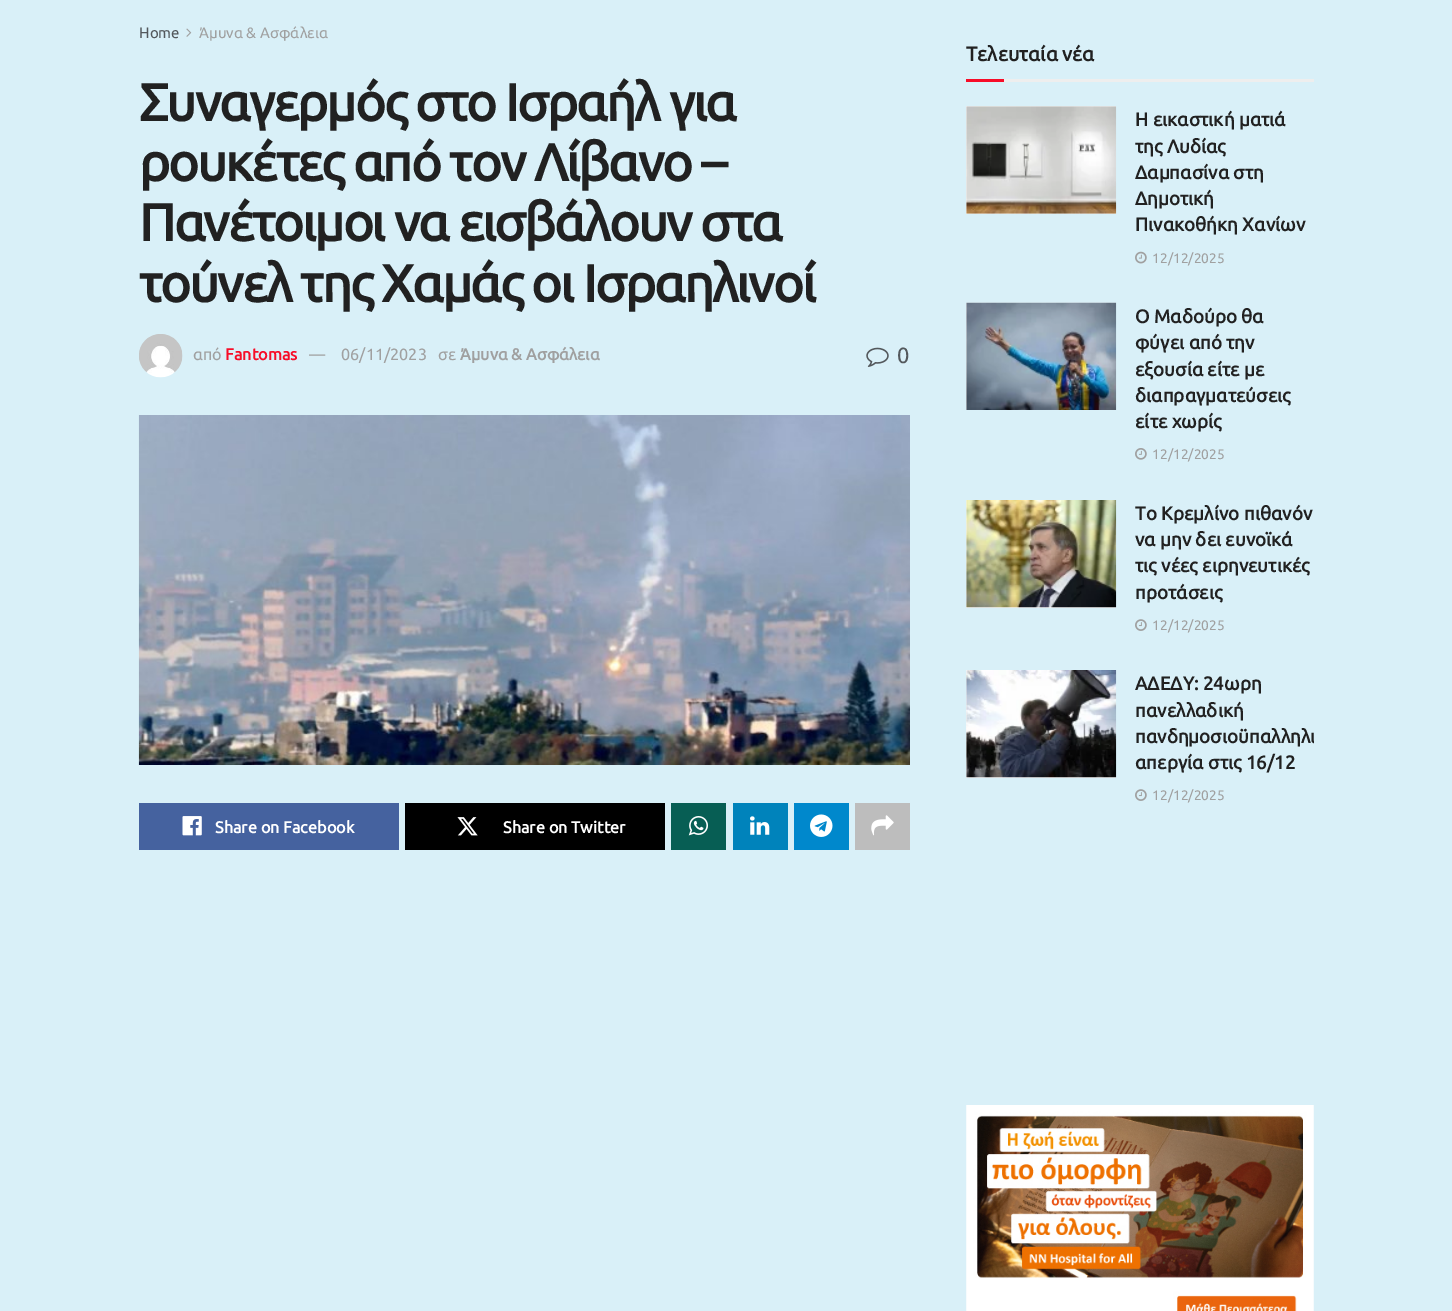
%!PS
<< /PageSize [1452 1311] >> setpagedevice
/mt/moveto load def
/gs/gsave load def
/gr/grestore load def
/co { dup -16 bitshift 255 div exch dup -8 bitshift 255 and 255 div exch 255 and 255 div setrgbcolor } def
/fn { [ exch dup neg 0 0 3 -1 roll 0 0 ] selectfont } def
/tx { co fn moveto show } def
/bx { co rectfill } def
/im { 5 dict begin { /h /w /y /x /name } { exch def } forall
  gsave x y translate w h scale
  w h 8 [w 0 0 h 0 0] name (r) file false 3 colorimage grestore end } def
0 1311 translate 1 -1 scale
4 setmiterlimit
0 0 1452 1311 16#D9F0F8 bx
(media/1.raw) 186 28 6 9 im
(media/2.raw) 139 334 44 44 im
(media/3.raw) 866 347 23 20 im
(media/4.raw) 138 415 772 350 im
139 803 260 47 16#45629F bx
(media/5.raw) 182 816 20 20 im
405 803 260 47 16#000000 bx
(media/6.raw) 457 817 21 19 im
671 803 55 47 16#075E54 bx
(media/7.raw) 688 816 20 20 im
733 803 55 47 16#0083BB bx
(media/8.raw) 750 816 20 19 im
794 803 55 47 16#0088CC bx
(media/9.raw) 810 814 23 23 im
855 803 55 47 16#BDBDBD bx
(media/10.raw) 871 815 23 21 im
1004 79 310 3 16#EEEEEE bx
966 79 38 3 16#F70D28 bx
966 106 150 108 16#F7F7F7 bx
(media/12.raw) 1070 106 30 108 im
(media/11.raw) 966 106 151 108 im
(media/13.raw) 1135 251 12 13 im
(media/14.raw) 966 302 150 108 im
(media/15.raw) 966 302 151 108 im
(media/16.raw) 1135 448 12 12 im
966 500 150 108 16#F7F7F7 bx
(media/17.raw) 966 500 151 108 im
(media/18.raw) 1135 619 12 12 im
966 670 150 108 16#F7F7F7 bx
(media/19.raw) 966 670 151 108 im
(media/18.raw) 1135 789 12 12 im
(media/20.raw) 966 1105 348 206 im
(Home) 139 38 /Ubuntu-Regular 15 16#53585C tx
(Άμυνα & Ασφάλεια) 199 38 /Ubuntu-Regular 15 16#A0A0A0 tx
/Ubuntu-Bold 52.5 fn
16#212121 co
139 121 mt -2.1 0 (Συναγερμός στο Ισραήλ για) ashow
139 181 mt -2.1 0 (ρουκέτες από τον Λίβανο –) ashow
139 241 mt -2.1 0 (Πανέτοιμοι να εισβάλουν στα) ashow
139 302 mt -2.1 0 (τούνελ της Χαμάς οι Ισραηλινοί) ashow
(από) 193 360 /Ubuntu-Regular 16.25 16#A0A0A0 tx
(Fantomas) 225 360 /Ubuntu-Bold 16.25 16#F70D28 tx
(—) 309 360 /Ubuntu-Regular 16.25 16#A0A0A0 tx
(06/11/2023) 341 360 /Ubuntu-Regular 16.25 16#A0A0A0 tx
(σε) 438 360 /Ubuntu-Regular 16.25 16#A0A0A0 tx
(Άμυνα & Ασφάλεια) 460 360 /Ubuntu-Bold 16.25 16#A0A0A0 tx
(0) 897 363 /Ubuntu-Regular 22 16#53585C tx
(Share on Facebook) 215 833 /Ubuntu-Bold 16.25 16#FFFFFF tx
(Share on Twitter) 503 833 /Ubuntu-Bold 16.25 16#FFFFFF tx
(Τελευταία νέα) 966 61 /Ubuntu-Bold 20 16#212121 tx
(Η εικαστική ματιά) 1135 126 /Ubuntu-Bold 18.75 16#212121 tx
(της Λυδίας) 1135 153 /Ubuntu-Bold 18.75 16#212121 tx
(Δαμπασίνα στη) 1135 179 /Ubuntu-Bold 18.75 16#212121 tx
(Δημοτική) 1135 205 /Ubuntu-Bold 18.75 16#212121 tx
(Πινακοθήκη Χανίων) 1135 231 /Ubuntu-Bold 18.75 16#212121 tx
(12/12/2025) 1152 263 /Ubuntu-Regular 13.75 16#A0A0A0 tx
(O Μαδούρο θα) 1135 323 /Ubuntu-Bold 18.75 16#212121 tx
(φύγει από την) 1135 349 /Ubuntu-Bold 18.75 16#212121 tx
(εξουσία είτε με) 1135 376 /Ubuntu-Bold 18.75 16#212121 tx
(διαπραγματεύσεις) 1135 402 /Ubuntu-Bold 18.75 16#212121 tx
(είτε χωρίς) 1135 428 /Ubuntu-Bold 18.75 16#212121 tx
(12/12/2025) 1152 459 /Ubuntu-Regular 13.75 16#A0A0A0 tx
(Το Κρεμλίνο πιθανόν) 1135 520 /Ubuntu-Bold 18.75 16#212121 tx
(να μην δει ευνοϊκά) 1135 546 /Ubuntu-Bold 18.75 16#212121 tx
(τις νέες ειρηνευτικές) 1135 572 /Ubuntu-Bold 18.75 16#212121 tx
(προτάσεις) 1135 599 /Ubuntu-Bold 18.75 16#212121 tx
(12/12/2025) 1152 630 /Ubuntu-Regular 13.75 16#A0A0A0 tx
(ΑΔΕΔΥ: 24ωρη) 1135 690 /Ubuntu-Bold 18.75 16#212121 tx
(πανελλαδική) 1135 717 /Ubuntu-Bold 18.75 16#212121 tx
gs
966 670 348 140 rectclip
(πανδημοσιοϋπαλληλι) 1135 743 /Ubuntu-Bold 18.75 16#212121 tx
gr
(απεργία στις 16/12) 1135 769 /Ubuntu-Bold 18.75 16#212121 tx
(12/12/2025) 1152 800 /Ubuntu-Regular 13.75 16#A0A0A0 tx
showpage
